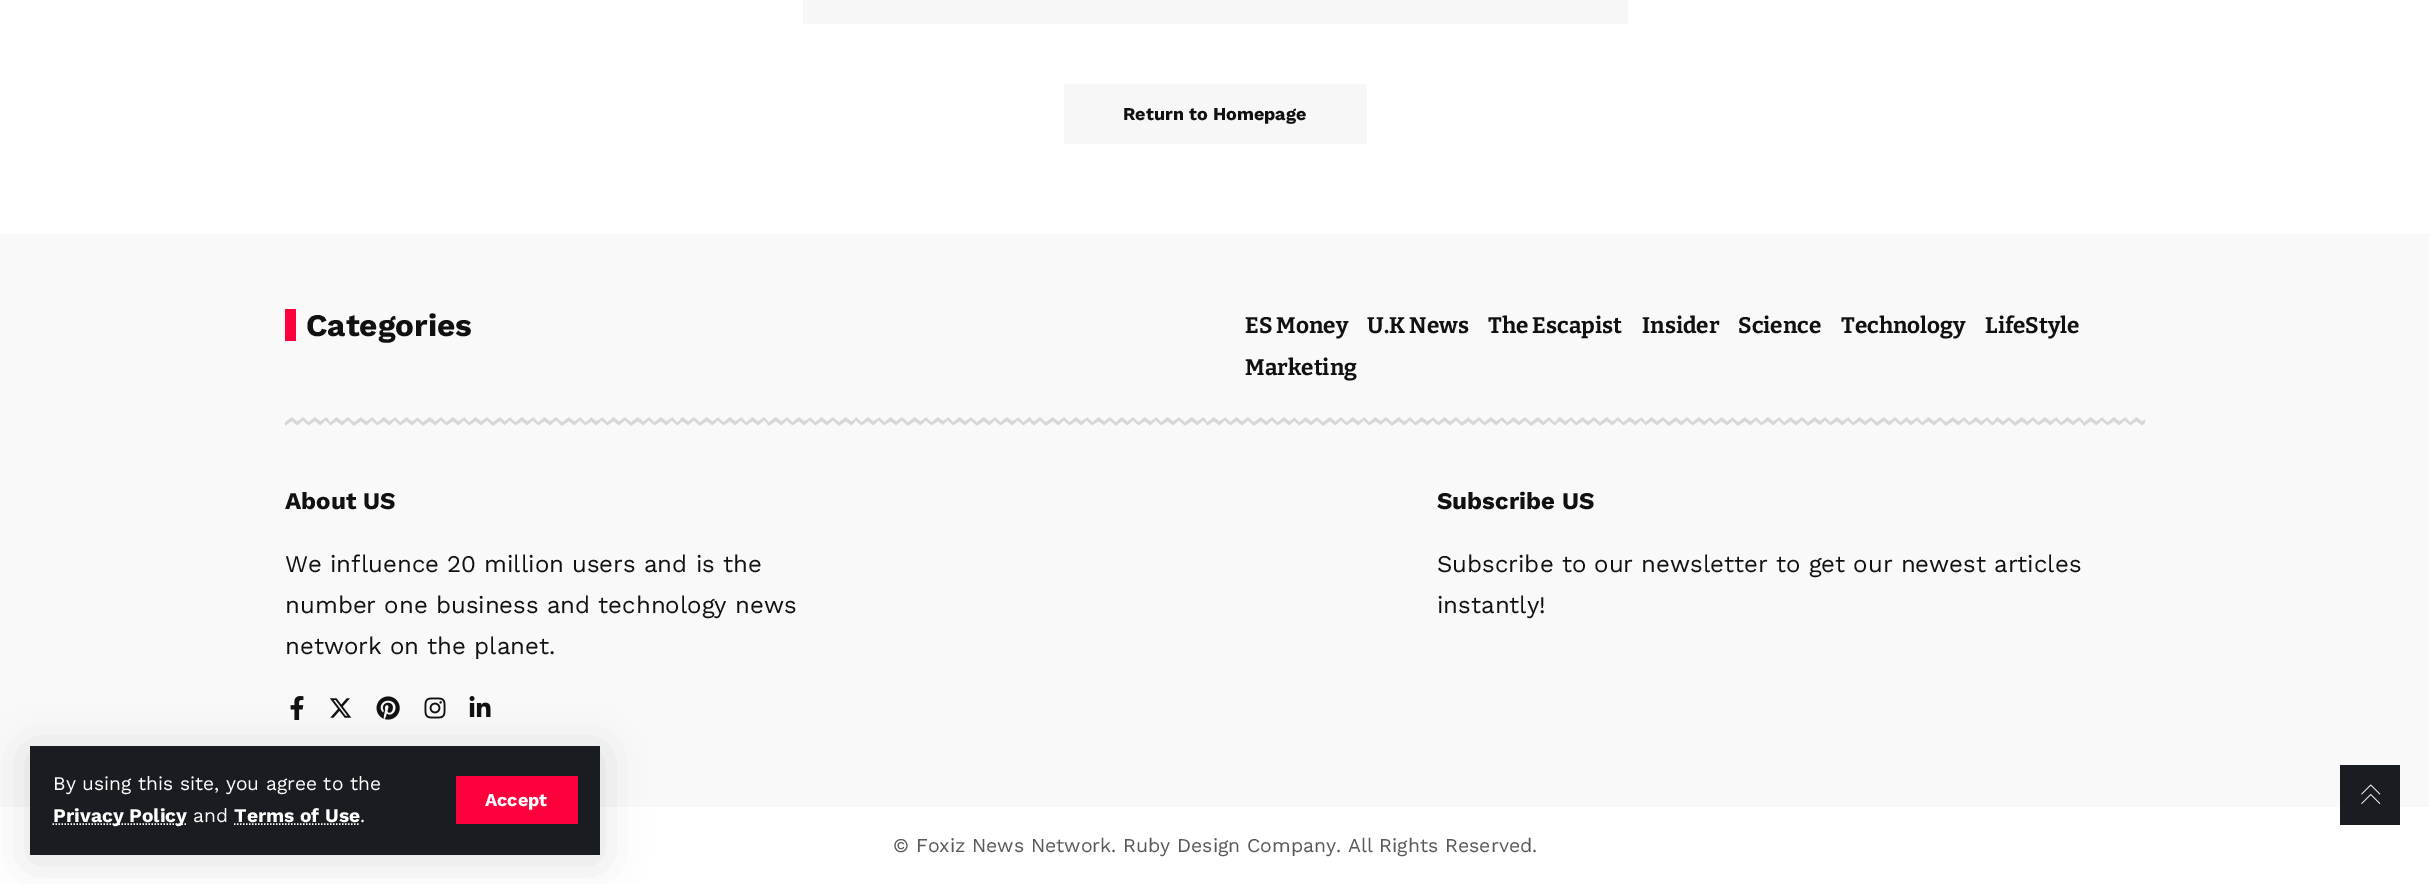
%!PS
<< /PageSize [2429 884] /PageUsesTransparency true >> setpagedevice
/mt/moveto load def
/li/lineto load def
/st/stroke load def
/lw/setlinewidth load def
/co { dup -16 bitshift 255 div exch dup -8 bitshift 255 and 255 div exch 255 and 255 div setrgbcolor } def
/fn { [ exch dup neg 0 0 3 -1 roll 0 0 ] selectfont } def
/tx { co fn moveto show } def
/bx { co rectfill } def
/al { dup .setfillconstantalpha .setstrokeconstantalpha } def
/rr { 5 dict begin { /r /h /w /y /x } { exch def } forall
  x r add y moveto x w add y 2 copy h add r arct x w add y h add x 1 index r arct
  x y h add x y r arct x y 2 copy exch w add exch r arct closepath end } def
/sh { 12 dict begin { /a /b /q /h /w /y /x } { exch def } forall gsave /was 0 def
  9 -2 -9 { dup b mul 4 div /e exch def 1 sub .425 mul 2.718 exch exp 1 add a .99 .min exch div /now exch def
    1 1 now sub 1 was sub div sub al /was now def
    w h .min e 2 mul add 0 gt { x e sub y e sub w e 2 mul add h e 2 mul add
      q e add b .6 mul add w h .min 2 div e add .min 0 .max rr fill } if } for grestore end } def
/im { 5 dict begin { /h /w /y /x /name } { exch def } forall
  gsave x y translate w h scale
  w h 8 [w 0 0 h 0 0] name (r) file false 3 colorimage grestore end } def
0 .pushpdf14devicefilter
0 884 translate 1 -1 scale
4 setmiterlimit
0 0 2429 884 16#FFFFFF bx
803 0 825 24 16#F7F7F7 bx
1064 84 303 60 16#F7F7F7 bx
0 234 2429 573 16#F9F9F9 bx
285 309 11 32 16#FF003C bx
(media/1.raw) 285 417 1860 9 im
(media/2.raw) 290 696 14 24 im
(media/3.raw) 329 698 23 20 im
(media/4.raw) 376 696 24 24 im
(media/5.raw) 424 697 22 22 im
(media/6.raw) 469 696 22 21 im
16#000000 co
30 752 570 109 0 22.5 .12 sh
30 746 570 109 16#191C20 bx
16#FFFFFF co
1.5 lw
[1.5 1.5] 0 setdash
52.5 824 mt 186 824 li st
234 824 mt 359.5 824 li st
456 776 122 48 16#FF003C bx
2340 765 60 60 16#191C20 bx
(media/7.raw) 2361 784 20 20 im
(Return to Homepage) 1123 120 /WorkSans-Bold 18 16#111111 tx
(Categories) 306 336 /WorkSans-Bold 31.5 16#111111 tx
(ES Money) 1245 333 /Bitter-Bold 22.5 16#111111 tx
(U.K News) 1367 333 /Bitter-Bold 22.5 16#111111 tx
(The Escapist) 1488 333 /Bitter-Bold 22.5 16#111111 tx
(Insider) 1642 333 /Bitter-Bold 22.5 16#111111 tx
(Science) 1738 333 /Bitter-Bold 22.5 16#111111 tx
(Technology) 1841 333 /Bitter-Bold 22.5 16#111111 tx
(LifeStyle) 1985 333 /Bitter-Bold 22.5 16#111111 tx
(Marketing) 1245 375 /Bitter-Bold 22.5 16#111111 tx
(About US) 285 509 /WorkSans-Bold 24 16#111111 tx
(We influence 20 million users and is the) 285 572 /WorkSans-Regular 24 16#111111 tx
(number one business and technology news) 285 613 /WorkSans-Regular 24 16#111111 tx
(network on the planet.) 285 654 /WorkSans-Regular 24 16#111111 tx
(Subscribe US) 1437 509 /WorkSans-Bold 24 16#111111 tx
(Subscribe to our newsletter to get our newest articles) 1437 572 /WorkSans-Regular 24 16#111111 tx
(instantly!) 1437 613 /WorkSans-Regular 24 16#111111 tx
(© Foxiz News Network. Ruby Design Company. All Rights Reserved.) 893 852 /WorkSans-Regular 19.5 16#585858 tx
(By using this site, you agree to the) 53 790 /WorkSans-Regular 19.25 16#FFFFFF tx
(Privacy Policy) 53 822 /WorkSans-Bold 19.25 16#FFFFFF tx
(and) 193 822 /WorkSans-Regular 19.25 16#FFFFFF tx
(Terms of Use) 234 822 /WorkSans-Bold 19.25 16#FFFFFF tx
(.) 360 822 /WorkSans-Regular 19.25 16#FFFFFF tx
(Accept) 485 806 /WorkSans-Bold 18 16#FFFFFF tx
.poppdf14devicefilter showpage
